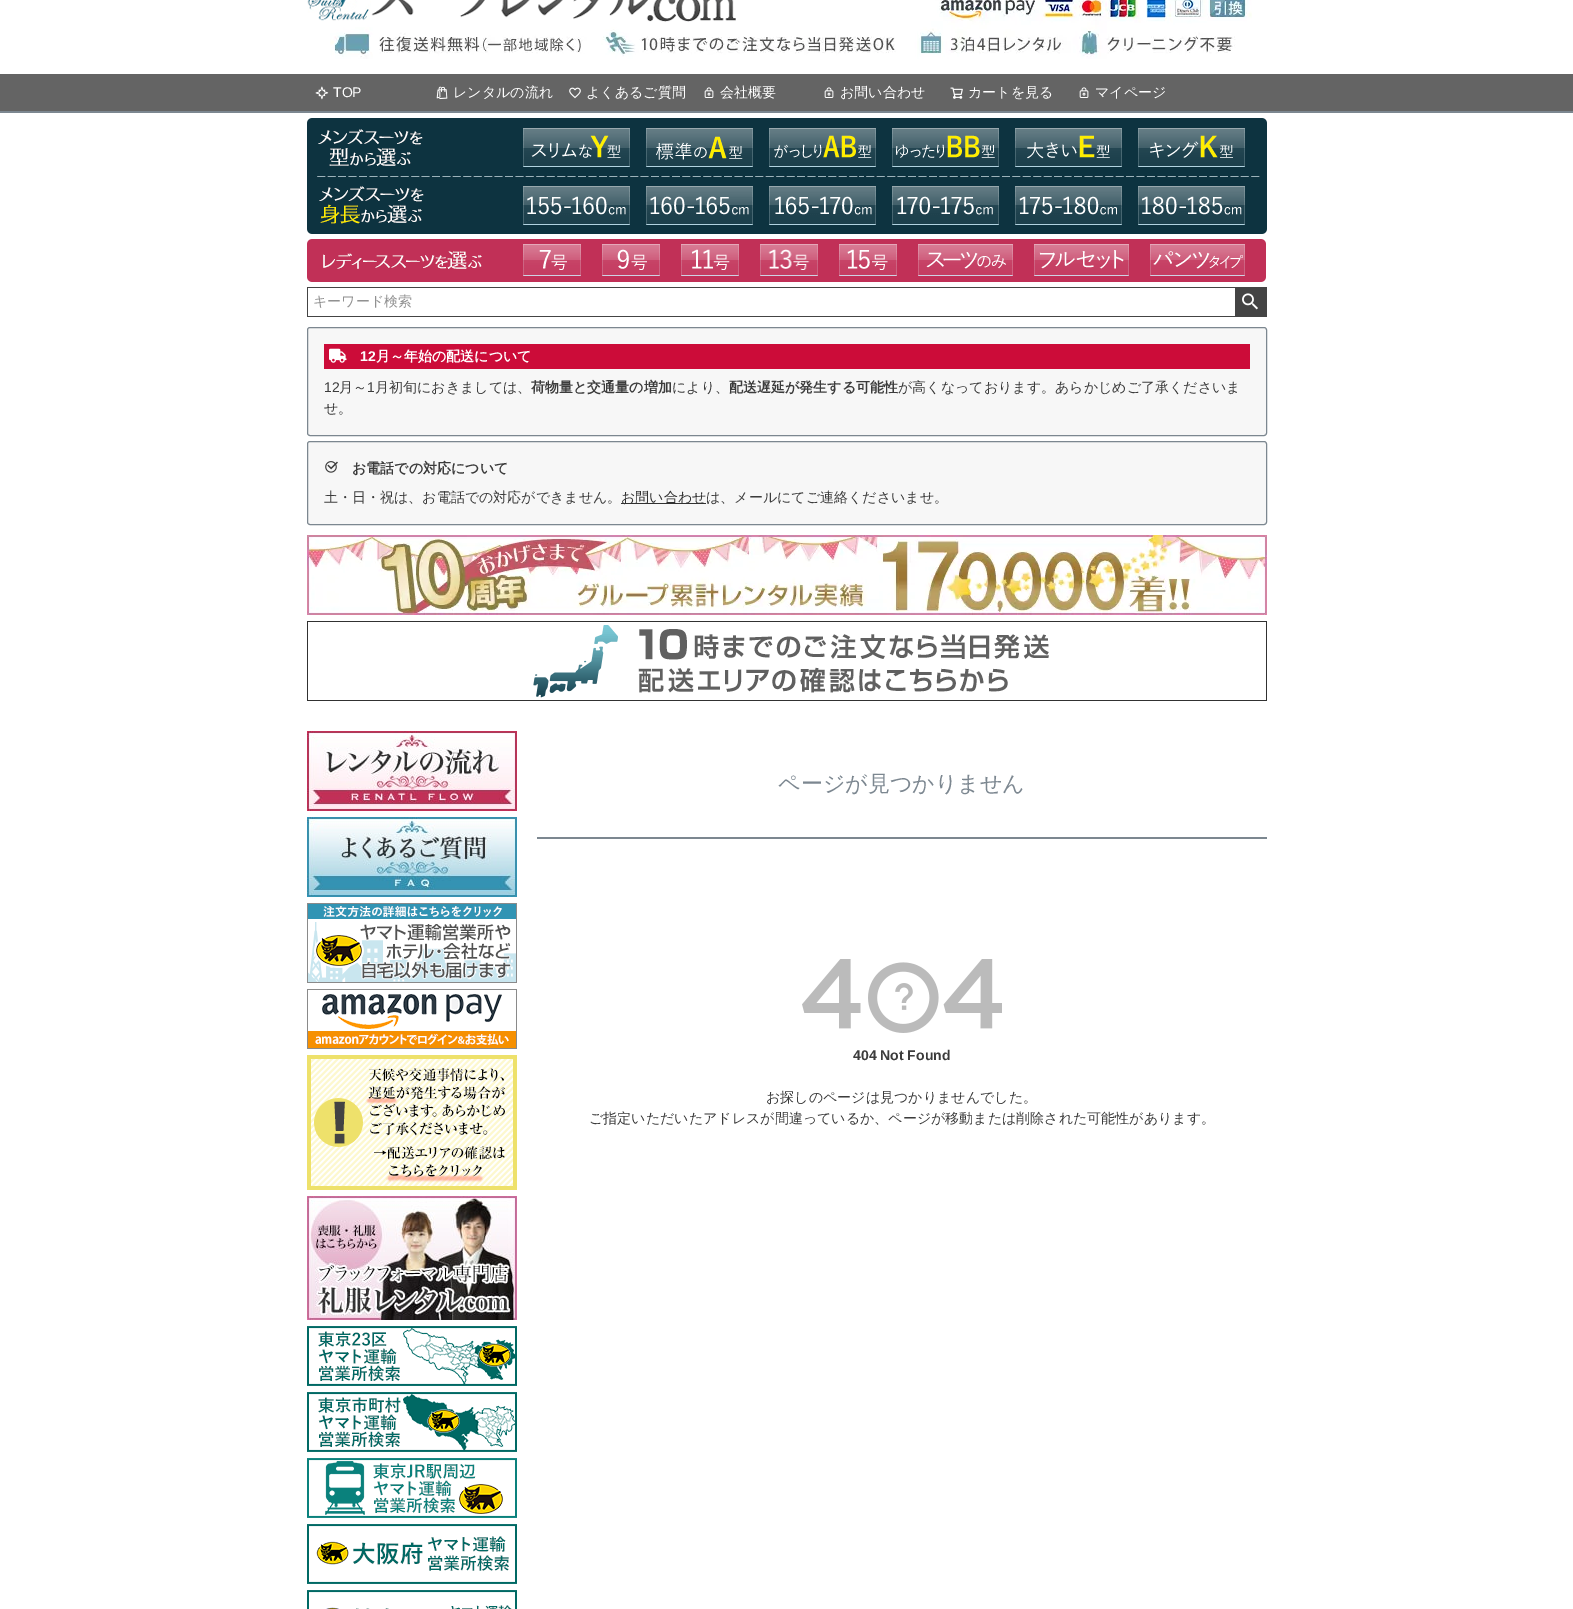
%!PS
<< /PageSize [1573 1609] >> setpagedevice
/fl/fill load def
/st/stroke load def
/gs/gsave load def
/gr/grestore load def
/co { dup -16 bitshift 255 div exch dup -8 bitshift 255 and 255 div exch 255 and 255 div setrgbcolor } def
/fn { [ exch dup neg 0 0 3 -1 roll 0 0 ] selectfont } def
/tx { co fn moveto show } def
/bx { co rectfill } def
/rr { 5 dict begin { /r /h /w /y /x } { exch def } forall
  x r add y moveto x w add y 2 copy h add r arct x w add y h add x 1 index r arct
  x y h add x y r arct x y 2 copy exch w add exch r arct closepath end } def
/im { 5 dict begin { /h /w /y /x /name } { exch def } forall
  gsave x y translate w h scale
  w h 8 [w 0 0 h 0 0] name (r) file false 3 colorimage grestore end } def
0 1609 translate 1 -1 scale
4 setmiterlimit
0 0 1573 1609 16#FFFFFF bx
(media/2.raw) 330 0 922 59 im
(media/1.raw) 307 0 429 22 im
0 74 1573 37 16#646464 bx
0 111 1573 2 16#7C8790 bx
(media/3.raw) 315 86 14 14 im
(media/4.raw) 436 86 12 14 im
(media/5.raw) 569 87 12 12 im
(media/6.raw) 704 87 10 11 im
(media/6.raw) 824 87 10 11 im
(media/7.raw) 950 87 13 12 im
(media/6.raw) 1079 87 10 11 im
(media/8.raw) 307 118 960 58 im
(media/9.raw) 523 128 107 39 im
(media/10.raw) 646 128 107 39 im
(media/11.raw) 769 128 107 39 im
(media/12.raw) 892 128 107 39 im
(media/13.raw) 1015 128 107 39 im
(media/14.raw) 1138 128 107 39 im
(media/15.raw) 307 176 960 58 im
(media/16.raw) 523 186 107 39 im
(media/17.raw) 646 186 107 39 im
(media/18.raw) 769 186 107 39 im
(media/19.raw) 892 186 107 39 im
(media/20.raw) 1015 186 107 39 im
(media/21.raw) 1138 186 107 39 im
(media/22.raw) 307 239 959 43 im
(media/23.raw) 523 244 58 32 im
(media/24.raw) 602 244 58 32 im
(media/25.raw) 681 244 58 32 im
(media/26.raw) 760 244 58 32 im
(media/27.raw) 839 244 58 32 im
(media/28.raw) 918 244 95 32 im
(media/29.raw) 1034 244 95 32 im
(media/30.raw) 1150 244 95 32 im
307 287 960 30 16#444444 bx
308 288 927 28 16#FFFFFF bx
(media/31.raw) 1242 293 16 17 im
16#F7F7F7 co
307.5 327.5 959 108 2.5 rr gs fl gr
16#7C8790 co
st
324 344 926 25 16#CC0C39 bx
(media/32.raw) 329 348 18 15 im
16#F7F7F7 co
307.5 441.5 959 83 2.5 rr gs fl gr
16#7C8790 co
st
(media/33.raw) 325 461 13 12 im
621 503 85 1 16#313131 bx
(media/34.raw) 307 535 960 80 im
(media/35.raw) 307 621 960 80 im
(media/36.raw) 307 731 210 80 im
(media/37.raw) 307 817 210 80 im
(media/38.raw) 307 903 210 80 im
(media/39.raw) 307 989 210 60 im
(media/40.raw) 307 1055 210 135 im
(media/41.raw) 307 1196 210 124 im
(media/42.raw) 307 1326 210 60 im
(media/43.raw) 307 1392 210 60 im
(media/44.raw) 307 1458 210 60 im
(media/45.raw) 307 1524 210 60 im
(media/46.raw) 307 1590 210 19 im
537 837 730 2 16#7C8790 bx
(media/47.raw) 802 959 200 74 im
(TOP) 333 97 /LiberationSans-Regular 14 16#FFFFFF tx
(レンタルの流れ) 453 97 /WenQuanYiZenHei-Medium 14 16#FFFFFF tx
(よくあるご質問) 586 97 /WenQuanYiZenHei-Medium 14 16#FFFFFF tx
(会社概要) 720 97 /WenQuanYiZenHei-Medium 14 16#FFFFFF tx
(お問い合わせ) 840 97 /WenQuanYiZenHei-Medium 14 16#FFFFFF tx
(カートを見る) 968 97 /WenQuanYiZenHei-Medium 14 16#FFFFFF tx
(マイページ) 1095 97 /WenQuanYiZenHei-Medium 14 16#FFFFFF tx
(キーワード検索) 313 306 /WenQuanYiZenHei-Medium 14 16#919191 tx
(12) 360 361 /LiberationSans-Bold 14 16#FFFFFF tx
(月～年始の配送について) 376 361 /WenQuanYiZenHei-Bold 14 16#FFFFFF tx
(12) 324 392 /LiberationSans-Regular 14 16#3C3C3C tx
(月～) 339 392 /WenQuanYiZenHei-Medium 14 16#3C3C3C tx
(1) 367 392 /LiberationSans-Regular 14 16#3C3C3C tx
(月初旬におきましては、) 375 392 /WenQuanYiZenHei-Medium 14 16#3C3C3C tx
(荷物量と交通量の増加) 531 392 /WenQuanYiZenHei-Bold 14 16#3C3C3C tx
(により、) 672 392 /WenQuanYiZenHei-Medium 14 16#3C3C3C tx
(配送遅延が発生する可能性) 729 392 /WenQuanYiZenHei-Bold 14 16#3C3C3C tx
(が高くなっております。あらかじめご了承くださいま) 898 392 /WenQuanYiZenHei-Medium 14 16#3C3C3C tx
(せ。) 324 413 /WenQuanYiZenHei-Medium 14 16#3C3C3C tx
(お電話での対応について) 352 473 /WenQuanYiZenHei-Bold 14 16#3C3C3C tx
(土・日・祝は、お電話での対応ができません。) 324 502 /WenQuanYiZenHei-Medium 14 16#3C3C3C tx
(お問い合わせ) 621 502 /WenQuanYiZenHei-Medium 14 16#313131 tx
(は、メールにてご連絡くださいませ。) 706 502 /WenQuanYiZenHei-Medium 14 16#3C3C3C tx
(ページが見つかりません) 778 791 /WenQuanYiZenHei-Medium 22 16#7C8790 tx
(404 Not Found) 853 1060 /LiberationSans-Bold 14 16#3C3C3C tx
(お探しのページは見つかりませんでした。) 766 1102 /WenQuanYiZenHei-Medium 14 16#3C3C3C tx
(ご指定いただいたアドレスが間違っているか、ページが移動または削除された可能性があります。) 589 1123 /WenQuanYiZenHei-Medium 14 16#3C3C3C tx
showpage
